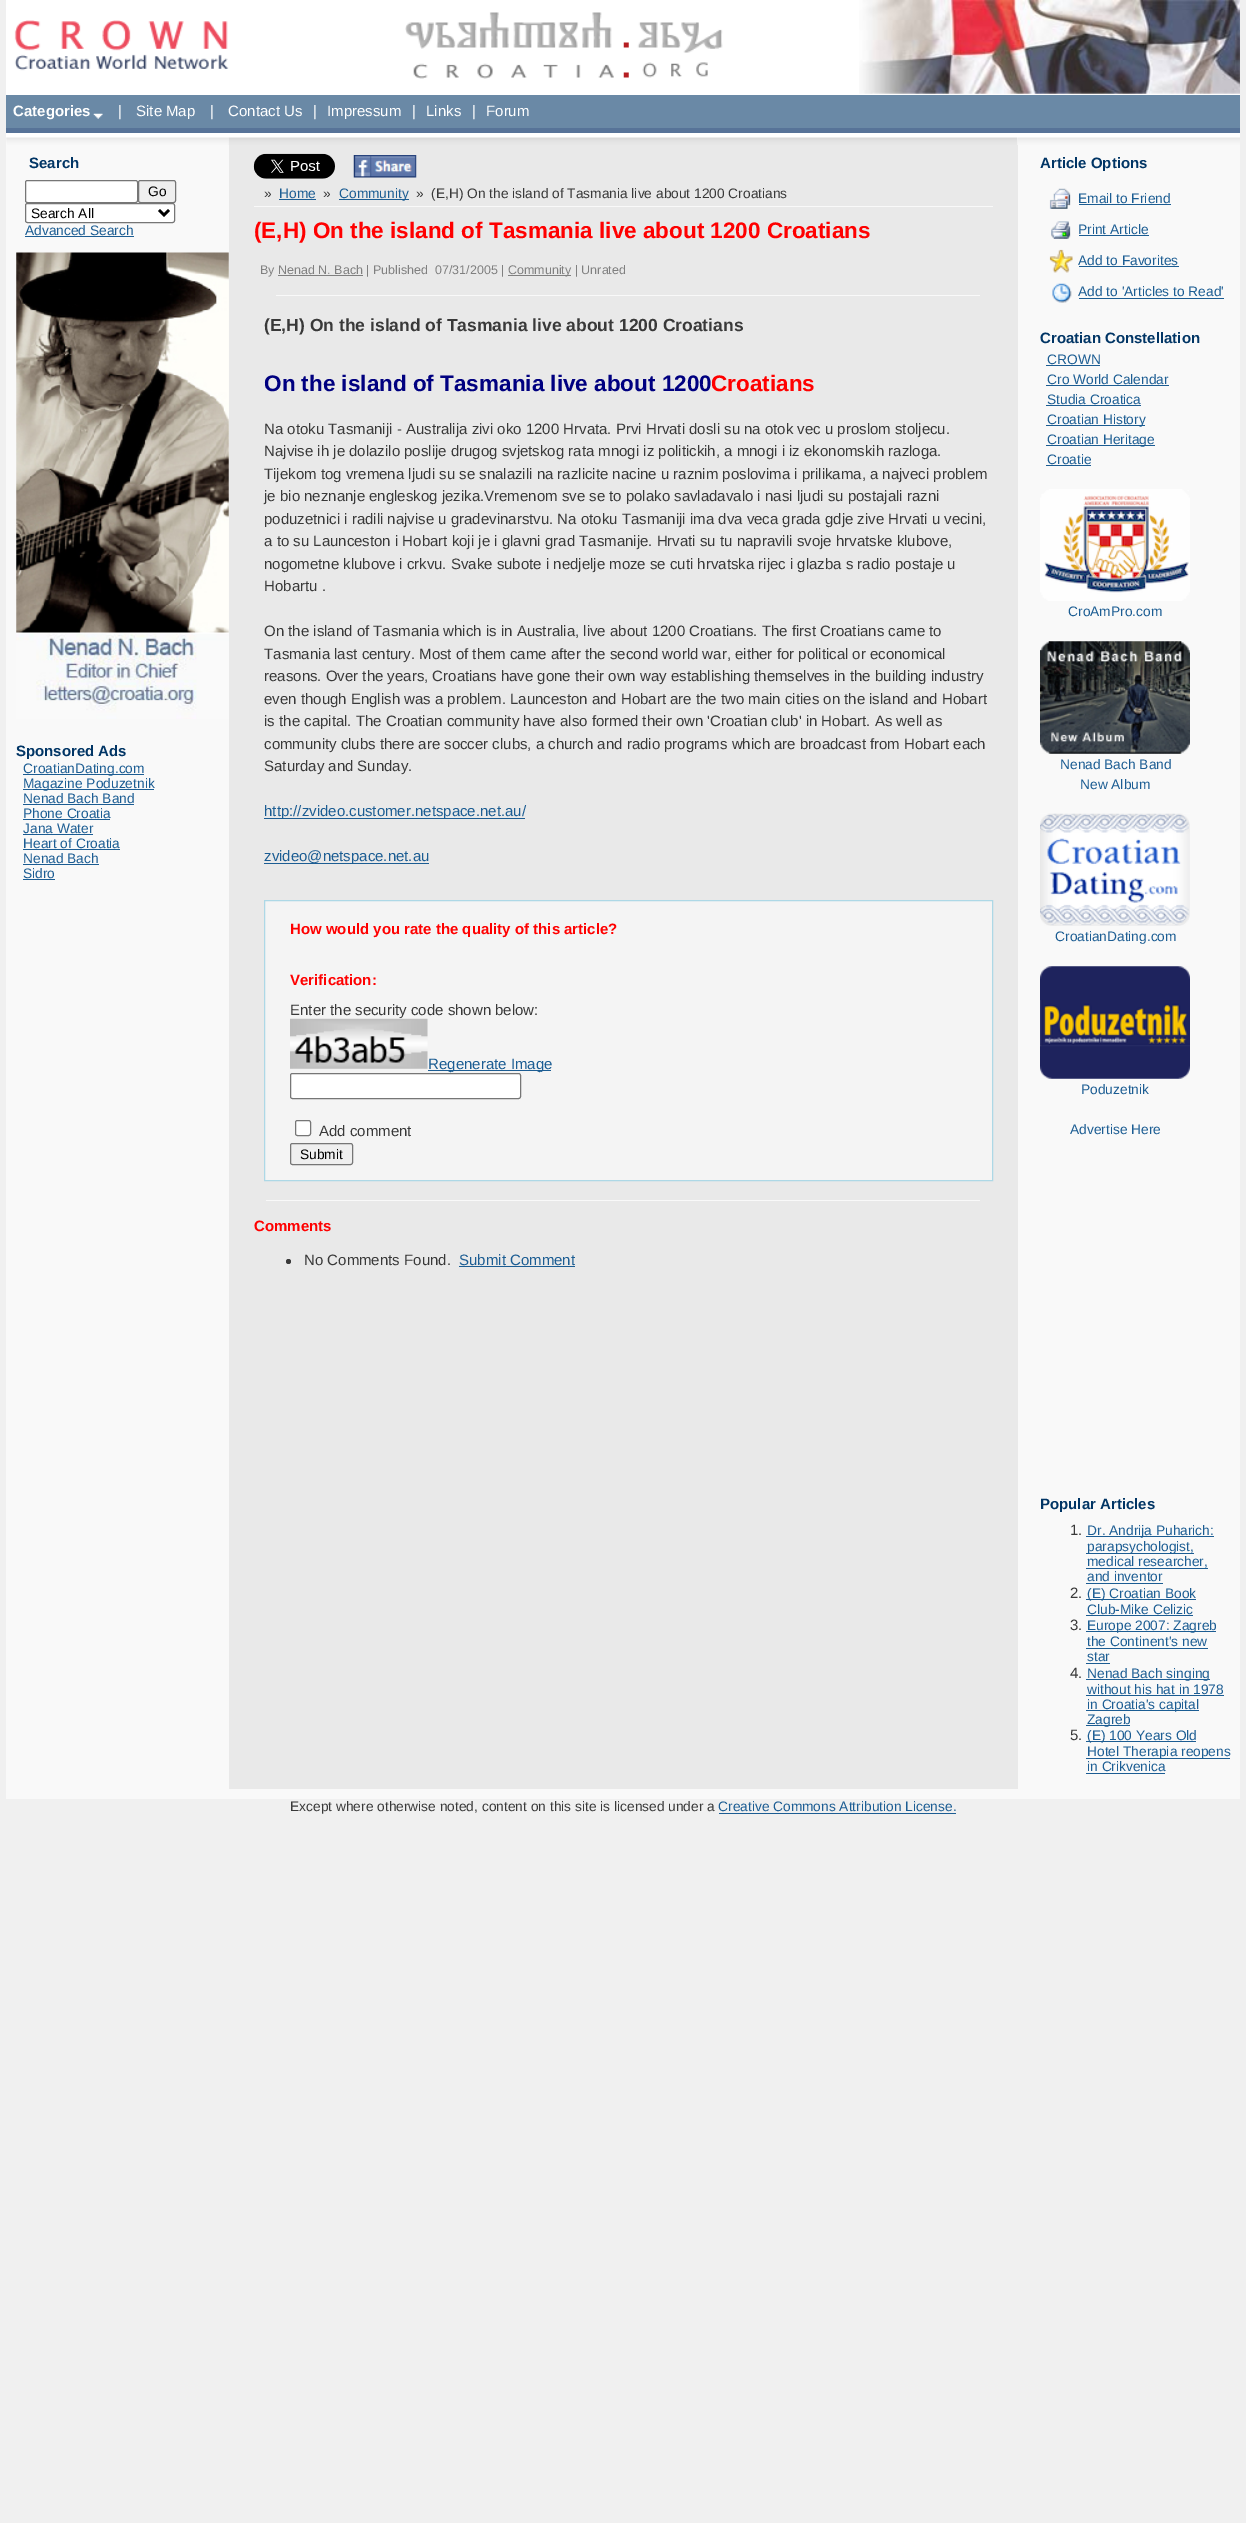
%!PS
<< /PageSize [1246 2523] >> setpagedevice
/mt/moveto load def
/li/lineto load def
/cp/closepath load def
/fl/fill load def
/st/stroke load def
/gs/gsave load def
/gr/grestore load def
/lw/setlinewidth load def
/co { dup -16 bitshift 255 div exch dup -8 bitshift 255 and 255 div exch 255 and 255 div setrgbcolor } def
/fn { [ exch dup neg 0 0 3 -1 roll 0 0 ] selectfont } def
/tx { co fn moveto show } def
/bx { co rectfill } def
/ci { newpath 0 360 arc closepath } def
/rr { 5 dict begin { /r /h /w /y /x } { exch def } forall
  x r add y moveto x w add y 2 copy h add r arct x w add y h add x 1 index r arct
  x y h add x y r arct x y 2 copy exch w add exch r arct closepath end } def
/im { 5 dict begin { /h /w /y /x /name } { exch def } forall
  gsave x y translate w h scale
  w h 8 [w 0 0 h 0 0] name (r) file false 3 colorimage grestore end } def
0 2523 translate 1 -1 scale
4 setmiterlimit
0 0 1246 2523 16#F0F0F0 bx
6 0 1234 145 16#FFFFFF bx
(media/1.raw) 14 20 215 51 im
(media/2.raw) 405 12 318 67 im
(media/3.raw) 859 0 381 94 im
6 95 1234 33 16#6A89A6 bx
6 128 1234 5 16#577398 bx
(media/4.raw) 93 113 10 6 im
(media/5.raw) 6 137 223 8 im
(media/6.raw) 228 137 790 8 im
(media/7.raw) 1018 137 222 8 im
6 145 223 1644 16#F9F9F9 bx
16#FFFFFF co
25.5 180.5 112 22 2 rr gs fl gr
16#767676 co
st
16#EFEFEF co
138.5 180.5 37 22 2 rr gs fl gr
16#767676 co
st
16#FFFFFF co
25.5 203.5 149 19 2 rr gs fl gr
16#767676 co
st
16#000000 co
2.5 lw
159 210 mt 164 215 li 169 210 li st
25 236 109 1 16#1C5D93 bx
(media/8.raw) 16 252 213 467 im
23 774 121 1 16#1C5D93 bx
23 789 131 1 16#1C5D93 bx
23 804 111 1 16#1C5D93 bx
23 819 87 1 16#1C5D93 bx
23 834 70 1 16#1C5D93 bx
23 849 97 1 16#1C5D93 bx
23 864 76 1 16#1C5D93 bx
23 879 32 1 16#1C5D93 bx
229 145 789 1644 16#E9E9E9 bx
(media/9.raw) 253 153 82 26 im
(media/10.raw) 353 155 64 23 im
254 206 739 1 16#F9F9F9 bx
279 199 37 1 16#1C5D93 bx
339 199 70 1 16#1C5D93 bx
508 275 63 1 16#808080 bx
278 275 85 1 16#808080 bx
276 295 704 1 16#F9F9F9 bx
264 818 261 1 16#1C5D93 bx
264 863 165 1 16#1C5D93 bx
16#F4F4F4 co
264.5 900.5 mt 992.5 900.5 li 992.5 1180.5 li 264.5 1180.5 li cp gs fl gr
16#ADD8E6 co
1 lw
st
428 1070 123 1 16#1C5D93 bx
16#FFFFFF co
290.5 1073.5 230 25 2 rr gs fl gr
16#767676 co
st
16#FFFFFF co
295.5 1120.5 15 15 2 rr gs fl gr
16#767676 co
st
16#EFEFEF co
290.5 1143.5 62 21 2 rr gs fl gr
16#767676 co
st
266 1200 714 1 16#F9F9F9 bx
16#393939 co
288.5 1261.5 2.5 ci fl
459 1266 116 1 16#1C5D93 bx
1018 145 222 1644 16#F9F9F9 bx
(media/12.raw) 1049 188 22 21 im
1079 204 92 1 16#1C5D93 bx
(media/13.raw) 1051 221 20 18 im
1079 235 70 1 16#1C5D93 bx
(media/14.raw) 1049 249 24 24 im
1079 266 100 1 16#1C5D93 bx
(media/15.raw) 1052 283 20 20 im
1079 298 145 1 16#1C5D93 bx
1046 365 54 1 16#1C5D93 bx
1046 385 123 1 16#1C5D93 bx
1046 405 95 1 16#1C5D93 bx
1046 425 99 1 16#1C5D93 bx
1046 445 109 1 16#1C5D93 bx
1046 465 45 1 16#1C5D93 bx
(media/16.raw) 1040 489 150 112 im
(media/17.raw) 1040 641 150 113 im
(media/18.raw) 1040 813 150 113 im
(media/19.raw) 1040 966 150 113 im
1086 1536 128 1 16#1C5D93 bx
1086 1553 108 1 16#1C5D93 bx
1086 1568 122 1 16#1C5D93 bx
1086 1583 77 1 16#1C5D93 bx
1086 1599 110 1 16#1C5D93 bx
1086 1615 107 1 16#1C5D93 bx
1086 1631 130 1 16#1C5D93 bx
1086 1648 122 1 16#1C5D93 bx
1086 1663 24 1 16#1C5D93 bx
1086 1679 124 1 16#1C5D93 bx
1086 1695 138 1 16#1C5D93 bx
1086 1710 113 1 16#1C5D93 bx
1086 1725 44 1 16#1C5D93 bx
1086 1741 110 1 16#1C5D93 bx
1086 1758 144 1 16#1C5D93 bx
1086 1773 79 1 16#1C5D93 bx
6 1789 1234 10 16#F9F9F9 bx
719 1813 237 1 16#1C5D93 bx
(Categories) 13 116 /LiberationSans-Bold 15 16#FFFFFF tx
(|) 118 116 /LiberationSans-Regular 15 16#FFFFFF tx
(Site Map) 136 116 /LiberationSans-Regular 15 16#FFFFFF tx
(|) 210 116 /LiberationSans-Regular 15 16#FFFFFF tx
(Contact Us) 228 116 /LiberationSans-Regular 15 16#FFFFFF tx
(|) 313 116 /LiberationSans-Regular 15 16#FFFFFF tx
(Impressum) 327 116 /LiberationSans-Regular 15 16#FFFFFF tx
(|) 412 116 /LiberationSans-Regular 15 16#FFFFFF tx
(Links) 426 116 /LiberationSans-Regular 15 16#FFFFFF tx
(|) 472 116 /LiberationSans-Regular 15 16#FFFFFF tx
(Forum) 486 116 /LiberationSans-Regular 15 16#FFFFFF tx
(Search) 29 168 /LiberationSans-Bold 15 16#013565 tx
(Go) 148 196 /LiberationSans-Regular 13.75 16#000000 tx
(Search All) 31 218 /LiberationSans-Regular 13.75 16#000000 tx
(Advanced Search) 25 235 /LiberationSans-Regular 13.75 16#1C5D93 tx
(Sponsored Ads) 16 756 /LiberationSans-Bold 15 16#013565 tx
(CroatianDating.com) 23 773 /LiberationSans-Regular 13.75 16#1C5D93 tx
(Magazine Poduzetnik) 23 788 /LiberationSans-Regular 13.75 16#1C5D93 tx
(Nenad Bach Band) 23 803 /LiberationSans-Regular 13.75 16#1C5D93 tx
(Phone Croatia) 23 818 /LiberationSans-Regular 13.75 16#1C5D93 tx
(Jana Water) 23 833 /LiberationSans-Regular 13.75 16#1C5D93 tx
(Heart of Croatia) 23 848 /LiberationSans-Regular 13.75 16#1C5D93 tx
(Nenad Bach) 23 863 /LiberationSans-Regular 13.75 16#1C5D93 tx
(Sidro) 23 878 /LiberationSans-Regular 13.75 16#1C5D93 tx
(») 264 198 /LiberationSans-Regular 13.75 16#393939 tx
(Home) 279 198 /LiberationSans-Regular 13.75 16#1C5D93 tx
(») 323 198 /LiberationSans-Regular 13.75 16#393939 tx
(Community) 339 198 /LiberationSans-Regular 13.75 16#1C5D93 tx
(»  \(E,H\) On the island of Tasmania live about 1200 Croatians) 416 198 /LiberationSans-Regular 13.75 16#393939 tx
(\(E,H\) On the island of Tasmania live about 1200 Croatians) 254 238 /LiberationSans-Bold 22.5 16#FF0000 tx
(By Nenad N. Bach | Published) 260 274 /LiberationSans-Regular 12.5 16#808080 tx
(07/31/2005 |) 435 274 /LiberationSans-Regular 12.5 16#808080 tx
(Community | Unrated) 508 274 /LiberationSans-Regular 12.5 16#808080 tx
(\(E,H\) On the island of Tasmania live about 1200 Croatians) 264 331 /LiberationSans-Bold 17.5 16#393939 tx
(On the island of Tasmania live about 1200) 264 391 /LiberationSans-Bold 22.5 16#000080 tx
(Croatians) 711 391 /LiberationSans-Bold 22.5 16#FF0000 tx
(Na otoku Tasmaniji - Australija zivi oko 1200 Hrvata. Prvi Hrvati dosli su na otok vec u proslom stoljecu.) 264 434 /LiberationSans-Regular 15 16#393939 tx
(Najvise ih je dolazilo poslije drugog svjetskog rata mnogi iz politickih, a mnogi i iz ekonomskih razloga.) 264 456 /LiberationSans-Regular 15 16#393939 tx
(Tijekom tog vremena ljudi su se snalazili na razlicite nacine u raznim poslovima i prilikama, a najveci problem) 264 479 /LiberationSans-Regular 15 16#393939 tx
(je bio neznanje engleskog jezika.Vremenom sve se to polako savladavalo i nasi ljudi su postajali razni) 264 501 /LiberationSans-Regular 15 16#393939 tx
(poduzetnici i radili najvise u gradevinarstvu. Na otoku Tasmaniji ima dva veca grada gdje zive Hrvati u vecini,) 264 524 /LiberationSans-Regular 15 16#393939 tx
(a to su Launceston i Hobart koji je i glavni grad Tasmanije. Hrvati su tu napravili svoje hrvatske klubove,) 264 546 /LiberationSans-Regular 15 16#393939 tx
(nogometne klubove i crkvu. Svake subote i nedjelje moze se cuti hrvatska rijec i glazba s radio postaje u) 264 569 /LiberationSans-Regular 15 16#393939 tx
(Hobartu .) 264 591 /LiberationSans-Regular 15 16#393939 tx
(On the island of Tasmania which is in Australia, live about 1200 Croatians. The first Croatians came to) 264 636 /LiberationSans-Regular 15 16#393939 tx
(Tasmania last century. Most of them came after the second world war, either for political or economical) 264 659 /LiberationSans-Regular 15 16#393939 tx
(reasons. Over the years, Croatians have gone their own way establishing themselves in the building industry) 264 681 /LiberationSans-Regular 15 16#393939 tx
(even though English was a problem. Launceston and Hobart are the two main cities on the island and Hobart) 264 704 /LiberationSans-Regular 15 16#393939 tx
(is the capital. The Croatian community have also formed their own 'Croatian club' in Hobart. As well as) 264 726 /LiberationSans-Regular 15 16#393939 tx
(community clubs there are soccer clubs, a church and radio programs which are broadcast from Hobart each) 264 749 /LiberationSans-Regular 15 16#393939 tx
(Saturday and Sunday.) 264 771 /LiberationSans-Regular 15 16#393939 tx
(http://zvideo.customer.netspace.net.au/) 264 816 /LiberationSans-Regular 15 16#1C5D93 tx
(zvideo@netspace.net.au) 264 861 /LiberationSans-Regular 15 16#1C5D93 tx
(How would you rate the quality of this article?) 290 934 /LiberationSans-Bold 15 16#FF0000 tx
(Verification:) 290 985 /LiberationSans-Bold 15 16#FF0000 tx
(Enter the security code shown below:) 290 1015 /LiberationSans-Regular 15 16#393939 tx
(media/11.raw) 290 1018 138 51 im
(Regenerate Image) 428 1069 /LiberationSans-Regular 15 16#1C5D93 tx
(Add comment) 319 1136 /LiberationSans-Regular 15 16#393939 tx
(Submit) 300 1159 /LiberationSans-Regular 13.75 16#000000 tx
(Comments) 254 1231 /LiberationSans-Bold 15 16#FF0000 tx
(No Comments Found.) 304 1265 /LiberationSans-Regular 15 16#393939 tx
(Submit Comment) 459 1265 /LiberationSans-Regular 15 16#1C5D93 tx
(Article Options) 1040 168 /LiberationSans-Bold 15 16#013565 tx
(Email to Friend) 1078 203 /LiberationSans-Regular 13.75 16#1C5D93 tx
(Print Article) 1078 234 /LiberationSans-Regular 13.75 16#1C5D93 tx
(Add to Favorites) 1078 265 /LiberationSans-Regular 13.75 16#1C5D93 tx
(Add to 'Articles to Read') 1078 296 /LiberationSans-Regular 13.75 16#1C5D93 tx
(Croatian Constellation) 1040 343 /LiberationSans-Bold 15 16#013565 tx
(CROWN) 1047 364 /LiberationSans-Regular 13.75 16#1C5D93 tx
(Cro World Calendar) 1047 384 /LiberationSans-Regular 13.75 16#1C5D93 tx
(Studia Croatica) 1047 404 /LiberationSans-Regular 13.75 16#1C5D93 tx
(Croatian History) 1047 424 /LiberationSans-Regular 13.75 16#1C5D93 tx
(Croatian Heritage) 1047 444 /LiberationSans-Regular 13.75 16#1C5D93 tx
(Croatie) 1047 464 /LiberationSans-Regular 13.75 16#1C5D93 tx
(CroAmPro.com) 1068 616 /LiberationSans-Regular 13.75 16#1C5D93 tx
(Nenad Bach Band) 1060 769 /LiberationSans-Regular 13.75 16#1C5D93 tx
(New Album) 1080 789 /LiberationSans-Regular 13.75 16#1C5D93 tx
(CroatianDating.com) 1055 941 /LiberationSans-Regular 13.75 16#1C5D93 tx
(Poduzetnik) 1081 1094 /LiberationSans-Regular 13.75 16#1C5D93 tx
(Advertise Here) 1070 1134 /LiberationSans-Regular 13.75 16#1C5D93 tx
(Popular Articles) 1040 1509 /LiberationSans-Bold 15 16#013565 tx
(1.) 1070 1535 /LiberationSans-Regular 15 16#393939 tx
(Dr. Andrija Puharich:) 1087 1535 /LiberationSans-Regular 13.75 16#1C5D93 tx
(parapsychologist,) 1087 1551 /LiberationSans-Regular 13.75 16#1C5D93 tx
(medical researcher,) 1087 1566 /LiberationSans-Regular 13.75 16#1C5D93 tx
(and inventor) 1087 1581 /LiberationSans-Regular 13.75 16#1C5D93 tx
(2.) 1070 1598 /LiberationSans-Regular 15 16#393939 tx
(\(E\) Croatian Book) 1087 1598 /LiberationSans-Regular 13.75 16#1C5D93 tx
(Club-Mike Celizic) 1087 1614 /LiberationSans-Regular 13.75 16#1C5D93 tx
(3.) 1070 1630 /LiberationSans-Regular 15 16#393939 tx
(Europe 2007: Zagreb) 1087 1630 /LiberationSans-Regular 13.75 16#1C5D93 tx
(the Continent's new) 1087 1646 /LiberationSans-Regular 13.75 16#1C5D93 tx
(star) 1087 1661 /LiberationSans-Regular 13.75 16#1C5D93 tx
(4.) 1070 1678 /LiberationSans-Regular 15 16#393939 tx
(Nenad Bach singing) 1087 1678 /LiberationSans-Regular 13.75 16#1C5D93 tx
(without his hat in 1978) 1087 1694 /LiberationSans-Regular 13.75 16#1C5D93 tx
(in Croatia's capital) 1087 1709 /LiberationSans-Regular 13.75 16#1C5D93 tx
(Zagreb) 1087 1724 /LiberationSans-Regular 13.75 16#1C5D93 tx
(5.) 1070 1740 /LiberationSans-Regular 15 16#393939 tx
(\(E\) 100 Years Old) 1087 1740 /LiberationSans-Regular 13.75 16#1C5D93 tx
(Hotel Therapia reopens) 1087 1756 /LiberationSans-Regular 13.75 16#1C5D93 tx
(in Crikvenica) 1087 1771 /LiberationSans-Regular 13.75 16#1C5D93 tx
(Except where otherwise noted, content on this site is licensed under a) 290 1811 /LiberationSans-Regular 13.75 16#393939 tx
(Creative Commons Attribution License.) 718 1811 /LiberationSans-Regular 13.75 16#1C5D93 tx
showpage
